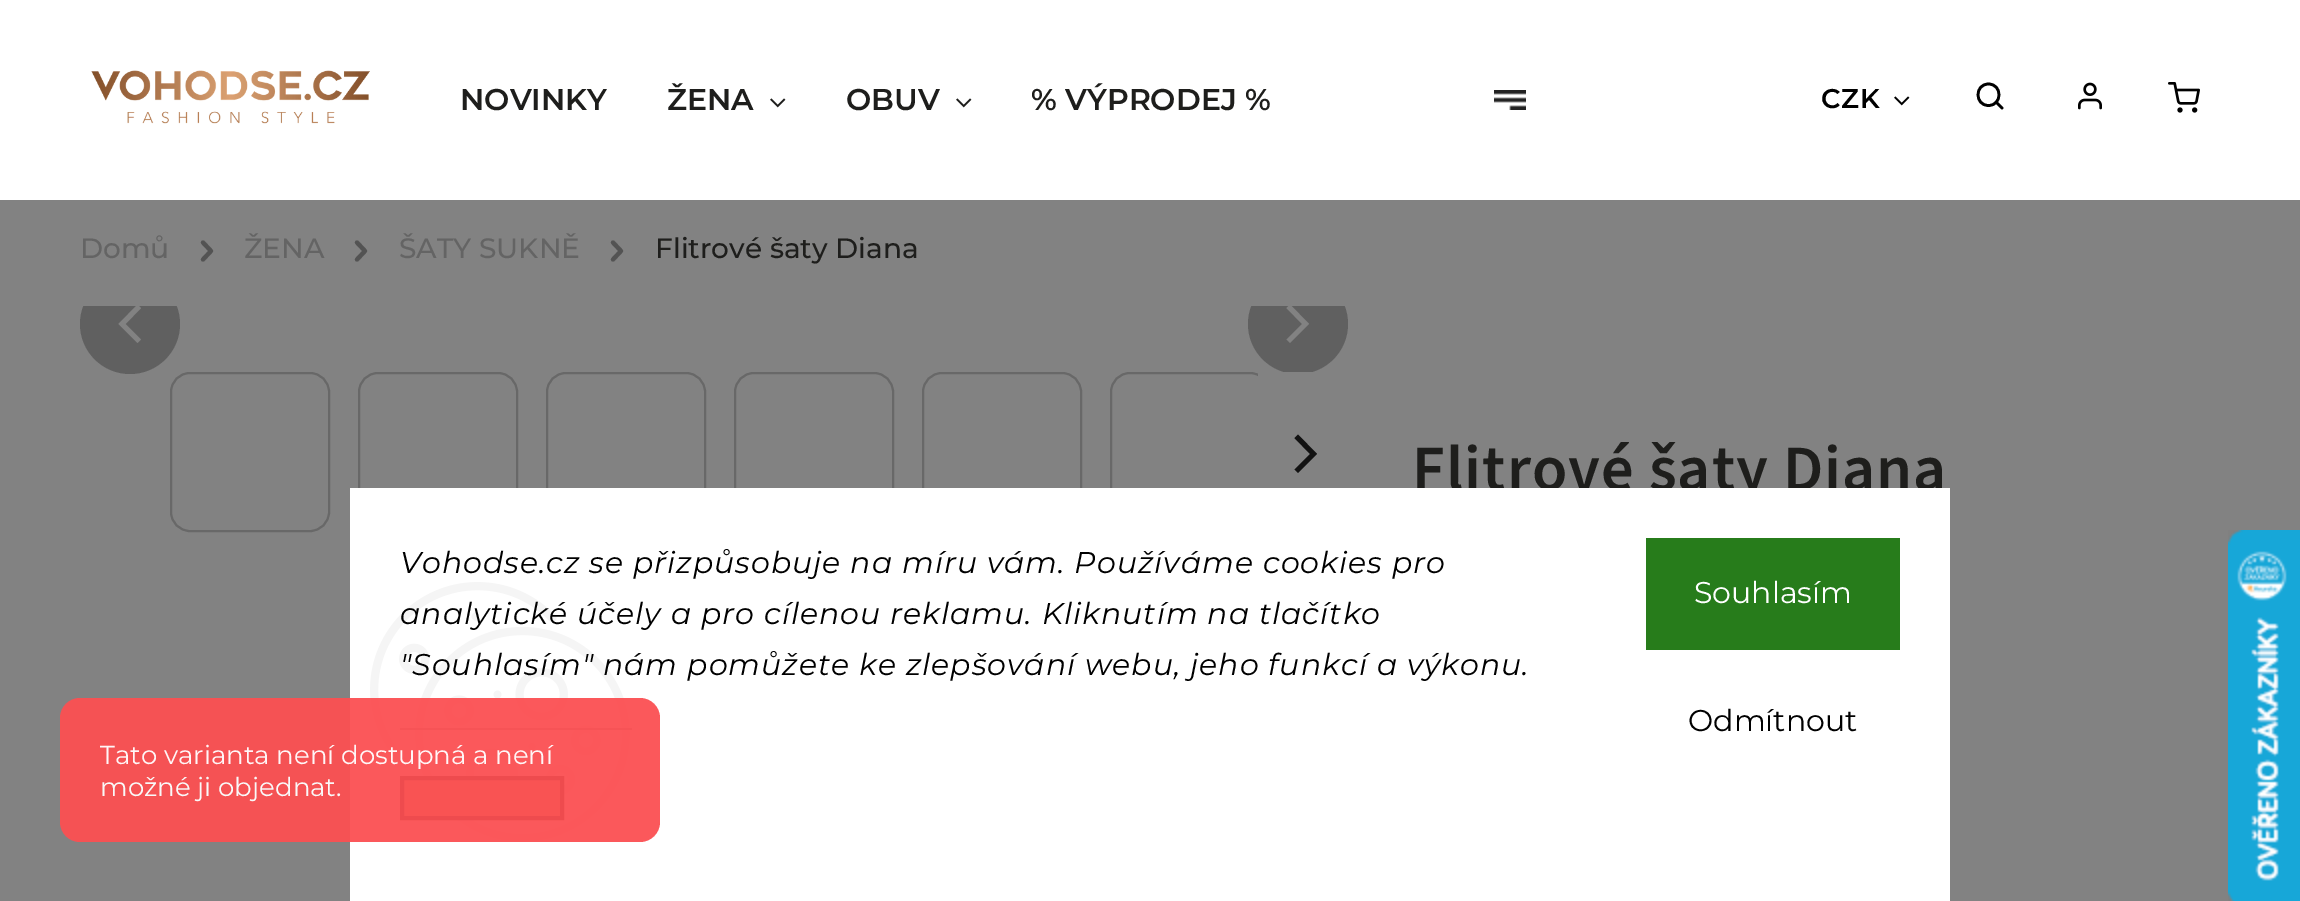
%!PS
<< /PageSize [2300 901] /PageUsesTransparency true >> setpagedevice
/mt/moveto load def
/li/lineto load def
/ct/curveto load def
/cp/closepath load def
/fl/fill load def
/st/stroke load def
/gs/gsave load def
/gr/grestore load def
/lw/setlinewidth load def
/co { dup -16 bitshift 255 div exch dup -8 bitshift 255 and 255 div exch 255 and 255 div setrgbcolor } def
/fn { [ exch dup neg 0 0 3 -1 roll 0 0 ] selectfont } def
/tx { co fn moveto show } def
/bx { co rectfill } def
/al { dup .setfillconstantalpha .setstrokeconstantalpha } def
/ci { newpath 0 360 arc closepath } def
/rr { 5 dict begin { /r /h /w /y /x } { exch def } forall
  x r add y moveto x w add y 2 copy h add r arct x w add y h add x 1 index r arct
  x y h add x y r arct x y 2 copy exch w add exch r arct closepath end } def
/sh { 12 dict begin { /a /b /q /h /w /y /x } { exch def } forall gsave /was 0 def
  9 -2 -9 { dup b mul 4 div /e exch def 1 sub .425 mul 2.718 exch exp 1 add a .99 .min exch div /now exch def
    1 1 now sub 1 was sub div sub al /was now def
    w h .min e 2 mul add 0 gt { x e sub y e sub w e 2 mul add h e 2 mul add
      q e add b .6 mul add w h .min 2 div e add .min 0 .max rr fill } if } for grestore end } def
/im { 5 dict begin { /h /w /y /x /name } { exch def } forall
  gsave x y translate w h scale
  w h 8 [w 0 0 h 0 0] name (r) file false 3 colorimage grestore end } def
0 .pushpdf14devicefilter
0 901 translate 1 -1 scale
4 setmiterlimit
0 0 2300 901 16#FFFFFF bx
16#A6A6A6 co
4.2 lw
1 setlinecap
1 setlinejoin
203 259.5 mt 211 251 li 203 242.5 li st
357 259.5 mt 365 251 li 357 242.5 li st
613 259.5 mt 621 251 li 613 242.5 li st
gs
80 306 2140 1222 rectclip
16#BFBFBF co
130 324 50 ci fl
16#FFFFFF co
137.5 343 mt 141 339.5 li 125.5 324 li 141 308 li 137.5 304.5 li 118.5 324 li cp fl
16#BFBFBF co
1298 324 50 ci fl
16#FFFFFF co
1290 343 mt 1286.5 339.5 li 1302 324 li 1286.5 308 li 1290 304.5 li 1309 324 li cp fl
gr
16#CCCCCC co
2 lw
0 setlinecap
0 setlinejoin
171 373 158 158 19 rr st
359 373 158 158 19 rr st
547 373 158 158 19 rr st
735 373 158 158 19 rr st
923 373 158 158 19 rr st
1111 373 158 158 19 rr st
1258 372 54 116 16#FFFFFF bx
16#222222 co
1298 473 mt 1294.5 469.5 li 1310 454 li 1294.5 438 li 1298 434.5 li 1317 454 li cp fl
16#000000 co
-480 -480 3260 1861 0 160 .5 sh
0 0 2300 200 16#FFFFFF bx
(media/1.raw) 770 98 16 10 im
(media/1.raw) 956 98 16 10 im
(media/2.raw) 1494 90 32 20 im
(media/3.raw) 91 70 279 54 im
(media/4.raw) 1894 96 16 10 im
16#000000 co
2.7 lw
1 setlinecap
1 setlinejoin
1988.5 105.5 mt 2002.5 105.5 2002.5 84 1988.5 84 ct 1974.5 84 1974.5 105.5 1988.5 105.5 ct cp 2002 108 mt 1996 102 li st
(media/5.raw) 2078 82 24 28 im
(media/6.raw) 2168 82 32 31 im
(media/8.raw) 2228 530 72 371 im
(NOVINKY) 460 110 /Montserrat-SemiBold 30 16#1E1E1C tx
(ŽENA) 667 110 /Montserrat-SemiBold 30 16#1E1E1C tx
(OBUV) 846 110 /Montserrat-SemiBold 30 16#1E1E1C tx
(% VÝPRODEJ %) 1031 110 /Montserrat-SemiBold 30 16#1E1E1C tx
/Montserrat-SemiBold 27 fn
16#000000 co
1821 108 mt 1 0 (CZK) ashow
(Domů) 80 258 /Montserrat-Medium 28 16#646464 tx
(ŽENA) 244 258 /Montserrat-Medium 28 16#646464 tx
(ŠATY SUKNĚ) 399 258 /Montserrat-Medium 28 16#646464 tx
(Flitrové šaty Diana) 655 258 /Montserrat-Medium 28 16#1E1E1C tx
/SourceSans3-SemiBold 64.5 fn
1412 490 mt 1 0 (Flitrové šaty Diana) ashow
350 488 1600 413 16#FFFFFF bx
/Montserrat-Italic 30 fn
16#000000 co
400 573 mt 1 0 (Vohodse.cz se přizpůsobuje na míru vám. Používáme cookies pro) ashow
1646 538 254 112 16#277C1B bx
(Souhlasím) 1694 603 /Montserrat-Regular 30 16#FFFFFF tx
(Odmítnout) 1688 731 /Montserrat-Regular 30 16#000000 tx
(media/7.raw) 370 582 260 260 im
16#D79D6F co
402 778 mt 562 778 li 562 818 li 402 818 li cp gs fl gr
16#000000 co
4 lw
0 setlinecap
0 setlinejoin
st
400 728 232 2 16#999999 bx
/Montserrat-Italic 30 fn
16#000000 co
400 675 mt 1 0 ("Souhlasím" nám pomůžete ke zlepšování webu, jeho funkcí a výkonu.) ashow
400 624 mt 1 0 (analytické účely a pro cílenou reklamu. Kliknutím na tlačítko) ashow
0.95 al
16#FB4F52 co
60 698 600 144 20 rr fl
1 al
(Tato varianta není dostupná a není) 100 764 /Montserrat-Regular 26 16#FFF6F7 tx
(možné ji objednat.) 100 796 /Montserrat-Regular 26 16#F9F9F9 tx
.poppdf14devicefilter showpage
